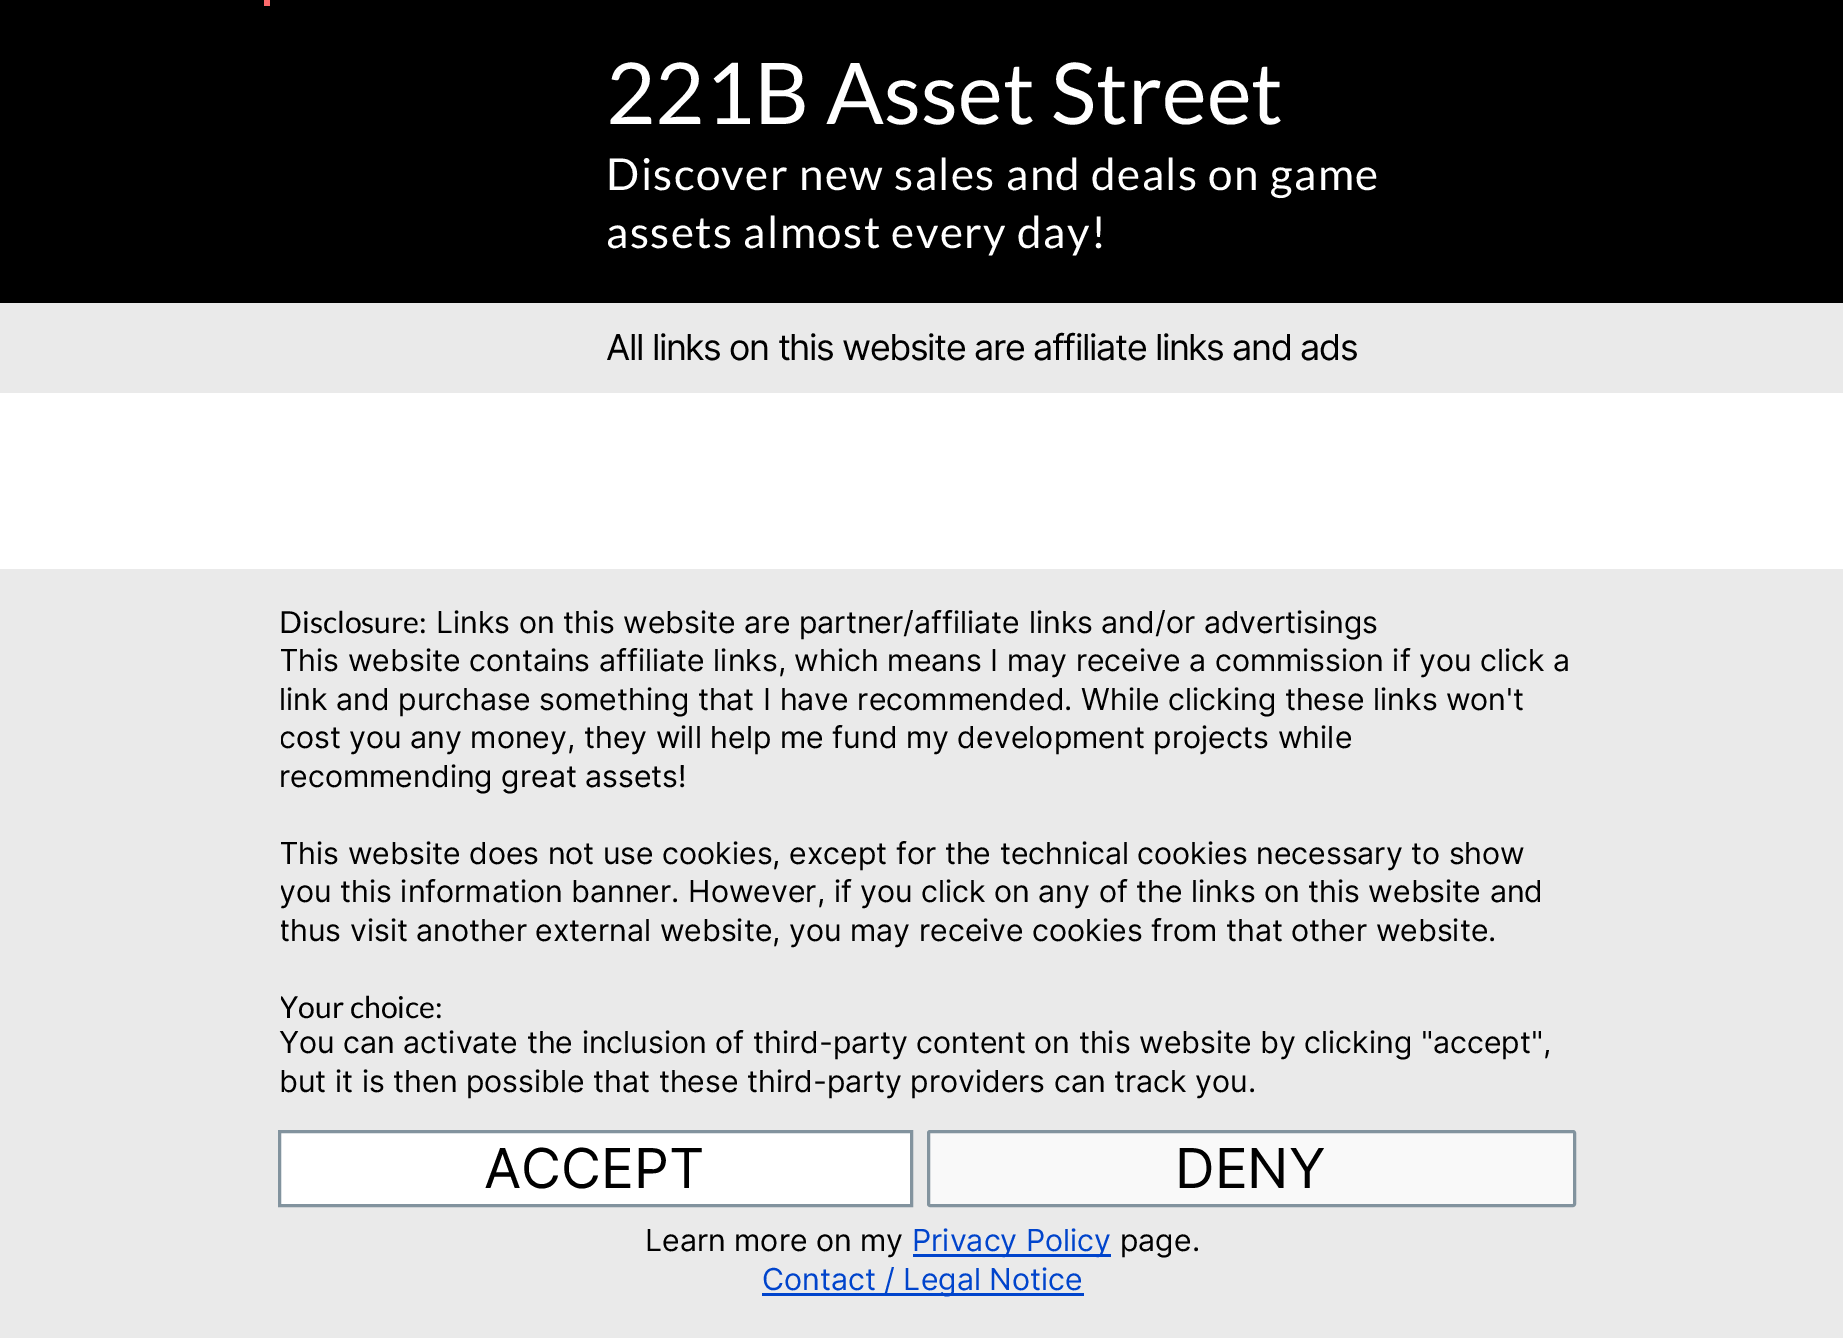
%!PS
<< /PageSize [1843 1338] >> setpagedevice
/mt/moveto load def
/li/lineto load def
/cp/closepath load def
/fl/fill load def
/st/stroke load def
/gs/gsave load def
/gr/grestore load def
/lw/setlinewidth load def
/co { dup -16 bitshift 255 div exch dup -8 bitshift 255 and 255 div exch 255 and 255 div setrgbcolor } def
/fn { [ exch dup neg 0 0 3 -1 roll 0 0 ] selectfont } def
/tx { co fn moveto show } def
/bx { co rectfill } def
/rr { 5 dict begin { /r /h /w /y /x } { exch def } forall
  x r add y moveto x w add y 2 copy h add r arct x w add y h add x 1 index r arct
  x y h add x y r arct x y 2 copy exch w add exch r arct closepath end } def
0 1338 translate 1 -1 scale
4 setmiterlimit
0 0 1843 1338 16#FFFFFF bx
0 569 1843 769 16#EAEAEA bx
0 0 1843 303 16#000000 bx
264 0 6 6 16#FC6A6C bx
0 303 1843 90 16#EAEAEA bx
16#FFFFFF co
279.5 1131.5 mt 911.5 1131.5 li 911.5 1205.5 li 279.5 1205.5 li cp gs fl gr
16#82939E co
3 lw
st
16#F9F9F9 co
928.5 1131.5 646 74 1.5 rr gs fl gr
16#82939E co
st
913 1254 198 3 16#0044CC bx
762 1293 322 3 16#0044CC bx
(221B Asset Street) 606 124 /Lato-Regular 85.25 16#FFFFFF tx
/Lato-Regular 44 fn
606 190 mt 1.4 0 (Discover new sales and deals on game) ashow
606 248 mt 1.4 0 (assets almost every day!) ashow
/Inter-Regular 35.75 fn
16#000000 co
606 360 mt -1.38 0 (All links on this website are affiliate links and ads) ashow
(Disclosure:) 279 633 /Lato-Regular 30.25 16#000000 tx
(Links on this website are partner/affiliate links and/or advertisings) 436 633 /Inter-Regular 30.25 16#000000 tx
gs
281 602 1292 663 rectclip
(This website contains affili) 279 671 /Inter-Regular 30.25 16#000000 tx
gr
(ate links, which means I may receive a commission if you click a) 659 671 /Inter-Regular 30.25 16#000000 tx
(link and purchase something that I have recommended. While clicking these links won't) 279 710 /Inter-Regular 30.25 16#000000 tx
gs
281 602 1292 663 rectclip
(cost you any money, they will help me fund my development projects while) 279 748 /Inter-Regular 30.25 16#000000 tx
gr
(recommending great assets!) 279 787 /Inter-Regular 30.25 16#000000 tx
gs
281 602 1292 663 rectclip
(This website does not use cookies, except for the technical cookies necessary to show) 279 864 /Inter-Regular 30.25 16#000000 tx
(you this information banner. However, if you click on any of the links on this website and) 279 902 /Inter-Regular 30.25 16#000000 tx
(thus visit another external website, you may receive cookies from that other website.) 279 941 /Inter-Regular 30.25 16#000000 tx
(Your choice:) 279 1018 /Lato-Regular 30.25 16#000000 tx
gr
(You can activate the inclusion of third-party content on this website by clicking "accept",) 279 1053 /Inter-Regular 30.25 16#000000 tx
(but it is then possible that these third-party providers can track you.) 279 1092 /Inter-Regular 30.25 16#000000 tx
(ACCEPT) 484 1188 /Inter-Regular 55 16#000000 tx
(DENY) 1175 1188 /Inter-Regular 55 16#000000 tx
(Learn more on my) 645 1251 /Inter-Regular 30.25 16#000000 tx
(Privacy Policy) 912 1251 /Inter-Regular 30.25 16#0044CC tx
(page.) 1120 1251 /Inter-Regular 30.25 16#000000 tx
(Contact / Legal Notice) 762 1290 /Inter-Regular 30.25 16#0044CC tx
showpage
